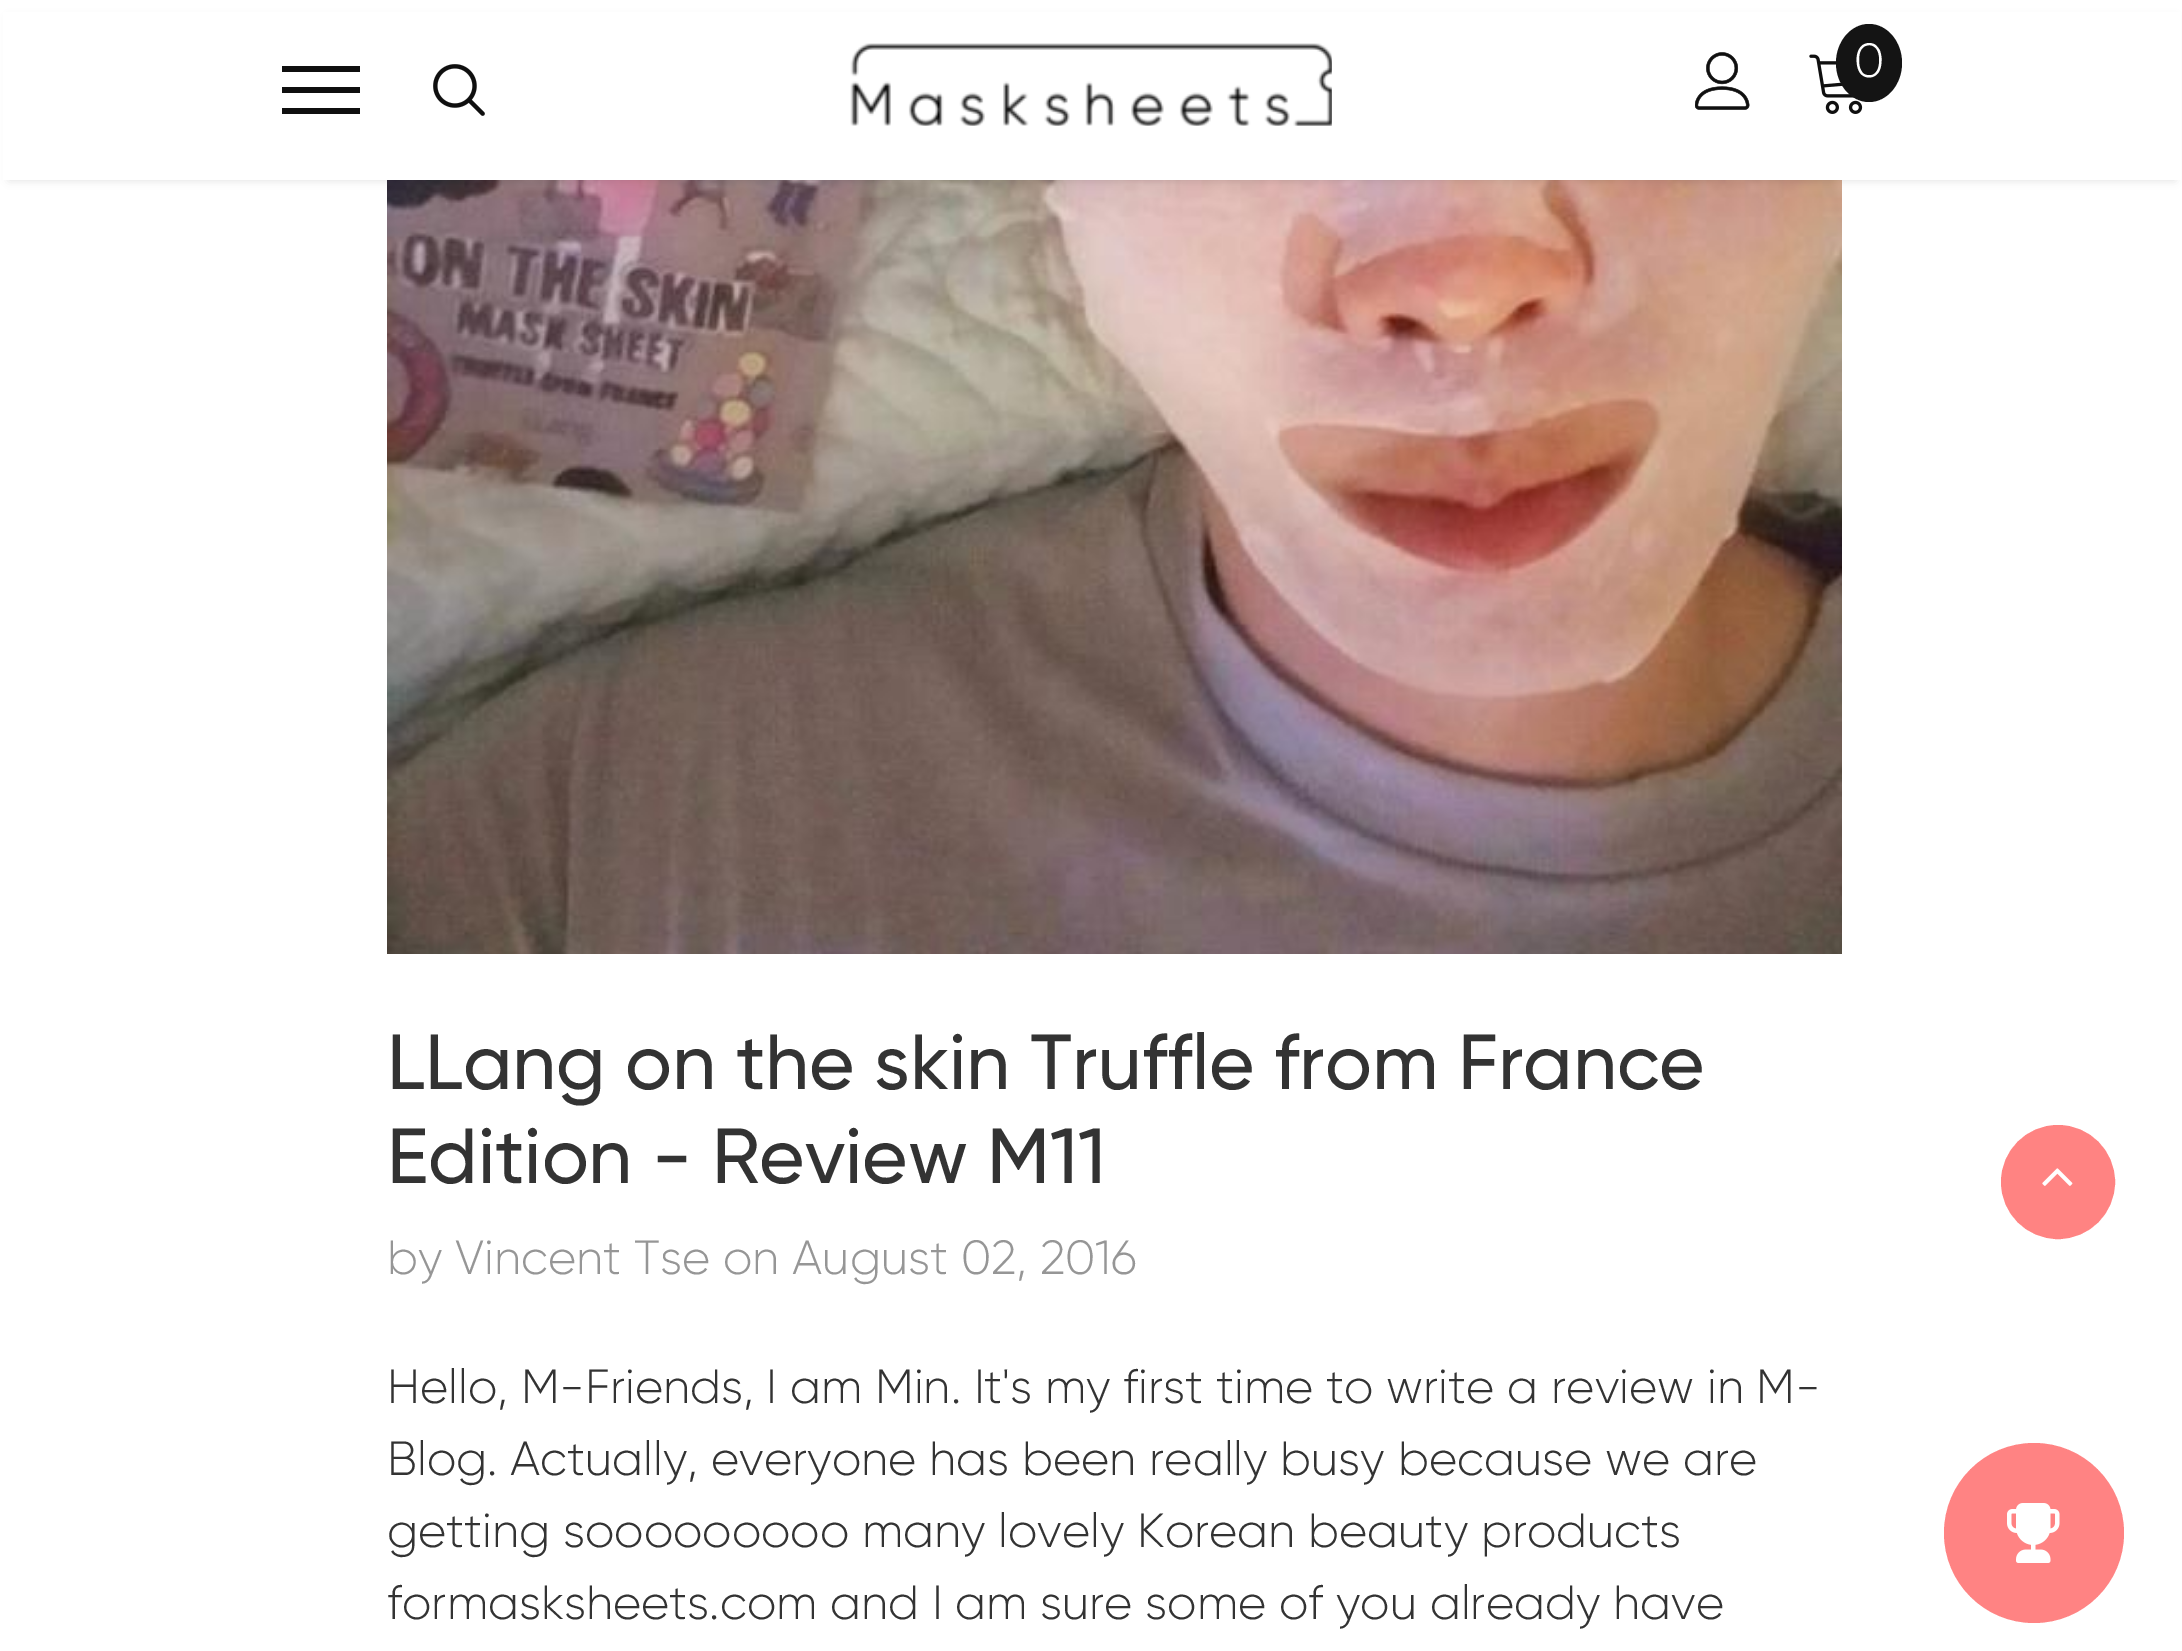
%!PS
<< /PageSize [2182 1651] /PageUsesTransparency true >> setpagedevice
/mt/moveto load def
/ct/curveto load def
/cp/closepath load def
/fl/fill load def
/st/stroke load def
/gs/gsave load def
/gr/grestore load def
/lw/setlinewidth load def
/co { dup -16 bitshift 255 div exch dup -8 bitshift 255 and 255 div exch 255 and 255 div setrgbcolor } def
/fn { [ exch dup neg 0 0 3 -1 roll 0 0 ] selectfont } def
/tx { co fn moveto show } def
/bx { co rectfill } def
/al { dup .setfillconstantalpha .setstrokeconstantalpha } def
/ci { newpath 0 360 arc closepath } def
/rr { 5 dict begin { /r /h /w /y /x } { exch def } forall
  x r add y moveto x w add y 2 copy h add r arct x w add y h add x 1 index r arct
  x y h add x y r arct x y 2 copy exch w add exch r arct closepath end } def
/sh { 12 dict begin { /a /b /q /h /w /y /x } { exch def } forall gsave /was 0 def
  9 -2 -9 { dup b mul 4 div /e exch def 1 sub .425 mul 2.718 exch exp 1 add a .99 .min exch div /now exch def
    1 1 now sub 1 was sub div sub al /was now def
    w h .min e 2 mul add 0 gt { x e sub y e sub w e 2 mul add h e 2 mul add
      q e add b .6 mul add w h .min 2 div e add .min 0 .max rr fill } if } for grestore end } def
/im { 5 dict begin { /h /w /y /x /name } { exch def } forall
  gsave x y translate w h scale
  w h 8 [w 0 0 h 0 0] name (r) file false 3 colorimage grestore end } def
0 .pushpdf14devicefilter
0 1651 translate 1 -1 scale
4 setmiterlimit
0 0 2182 1651 16#FFFFFF bx
(media/5.raw) 387 180 1455 774 im
16#000000 co
9 18 2166 162 0 4.5 .12 sh
3 12 2178 168 16#FFFFFF bx
282 87 78 6 16#0F0F0F bx
282 66 78 6 16#0F0F0F bx
282 108 78 6 16#0F0F0F bx
(media/1.raw) 433 64 52 52 im
(media/2.raw) 850 43 482 83 im
(media/3.raw) 1695 52 55 58 im
(media/4.raw) 1809 54 54 60 im
16#141414 co
1869 24 mt 1887 24 1902 41.5 1902 63 ct 1902 84.5 1887 102 1869 102 ct 1851 102 1836 84.5 1836 63 ct 1836 41.5 1851 24 1869 24 ct cp fl
16#FF8382 co
2058 1182 55.5 ci gs fl gr
3 lw
st
(media/6.raw) 2042 1168 31 18 im
16#FF8383 co
2034 1533 90 ci fl
(media/7.raw) 2007 1503 53 60 im
(0) 1854 77 /Gilroy-Light 48 16#FFFFFF tx
(LLang on the skin Truffle from France) 387 1089 /Gilroy-Medium 78 16#333333 tx
(Edition - Review M11) 387 1183 /Gilroy-Medium 78 16#333333 tx
(by Vincent Tse on August 02, 2016) 387 1274 /Gilroy-Light 48 16#969696 tx
(Hello, M-Friends, I am Min. It's my first time to write a review in M-) 387 1403 /Gilroy-Light 48 16#333333 tx
(Blog. Actually, everyone has been really busy because we are) 387 1475 /Gilroy-Light 48 16#333333 tx
(getting sooooooooo many lovely Korean beauty products) 387 1547 /Gilroy-Light 48 16#333333 tx
(formasksheets.com and I am sure some of you already have) 387 1619 /Gilroy-Light 48 16#333333 tx
.poppdf14devicefilter showpage
